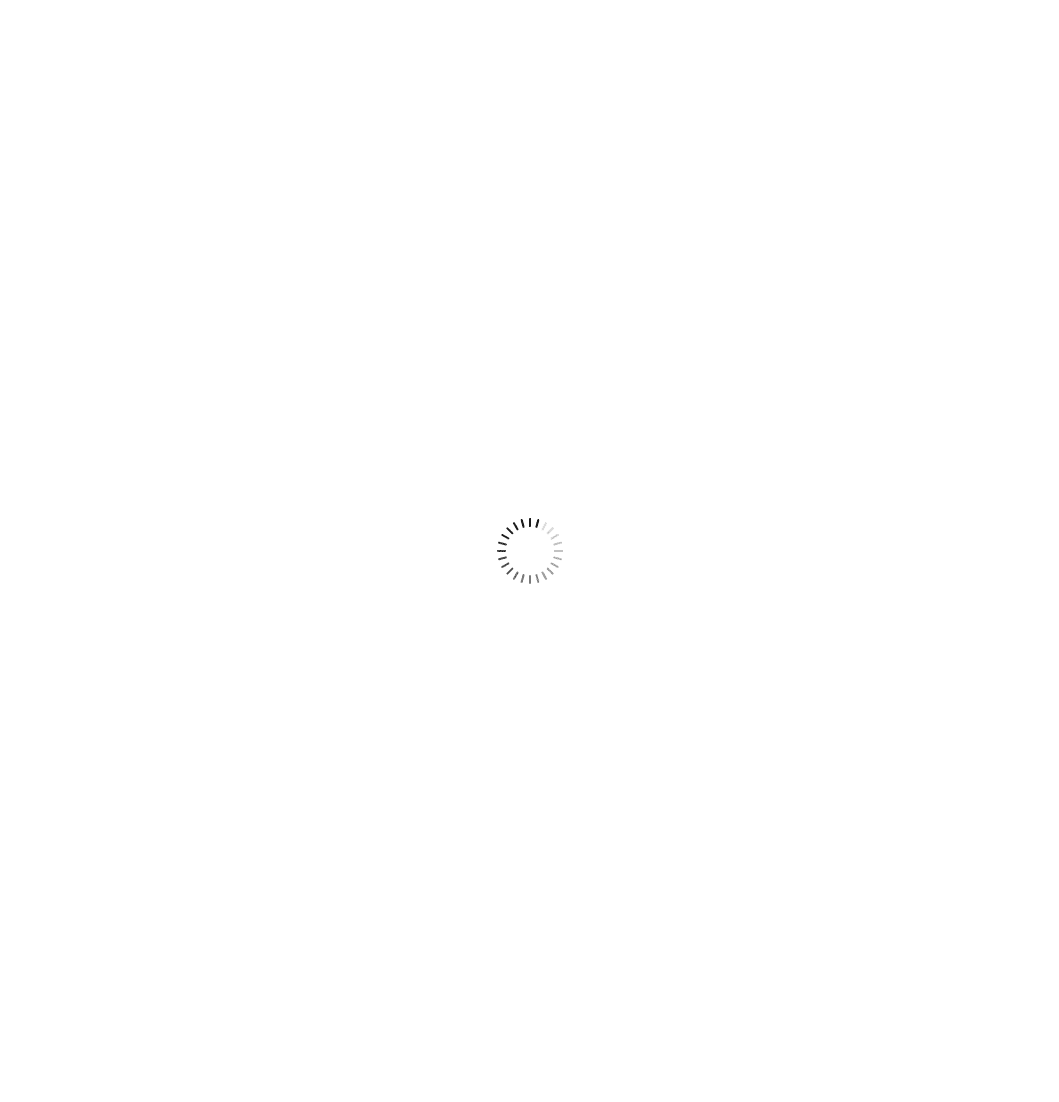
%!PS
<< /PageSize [1059 1102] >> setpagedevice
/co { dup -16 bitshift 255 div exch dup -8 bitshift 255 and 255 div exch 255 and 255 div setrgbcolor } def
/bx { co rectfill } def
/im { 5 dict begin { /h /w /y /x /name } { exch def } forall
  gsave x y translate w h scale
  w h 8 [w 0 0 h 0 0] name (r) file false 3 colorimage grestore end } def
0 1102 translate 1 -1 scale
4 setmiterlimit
0 0 1059 1102 16#FFFFFF bx
(media/1.raw) 497 518 66 66 im
showpage
